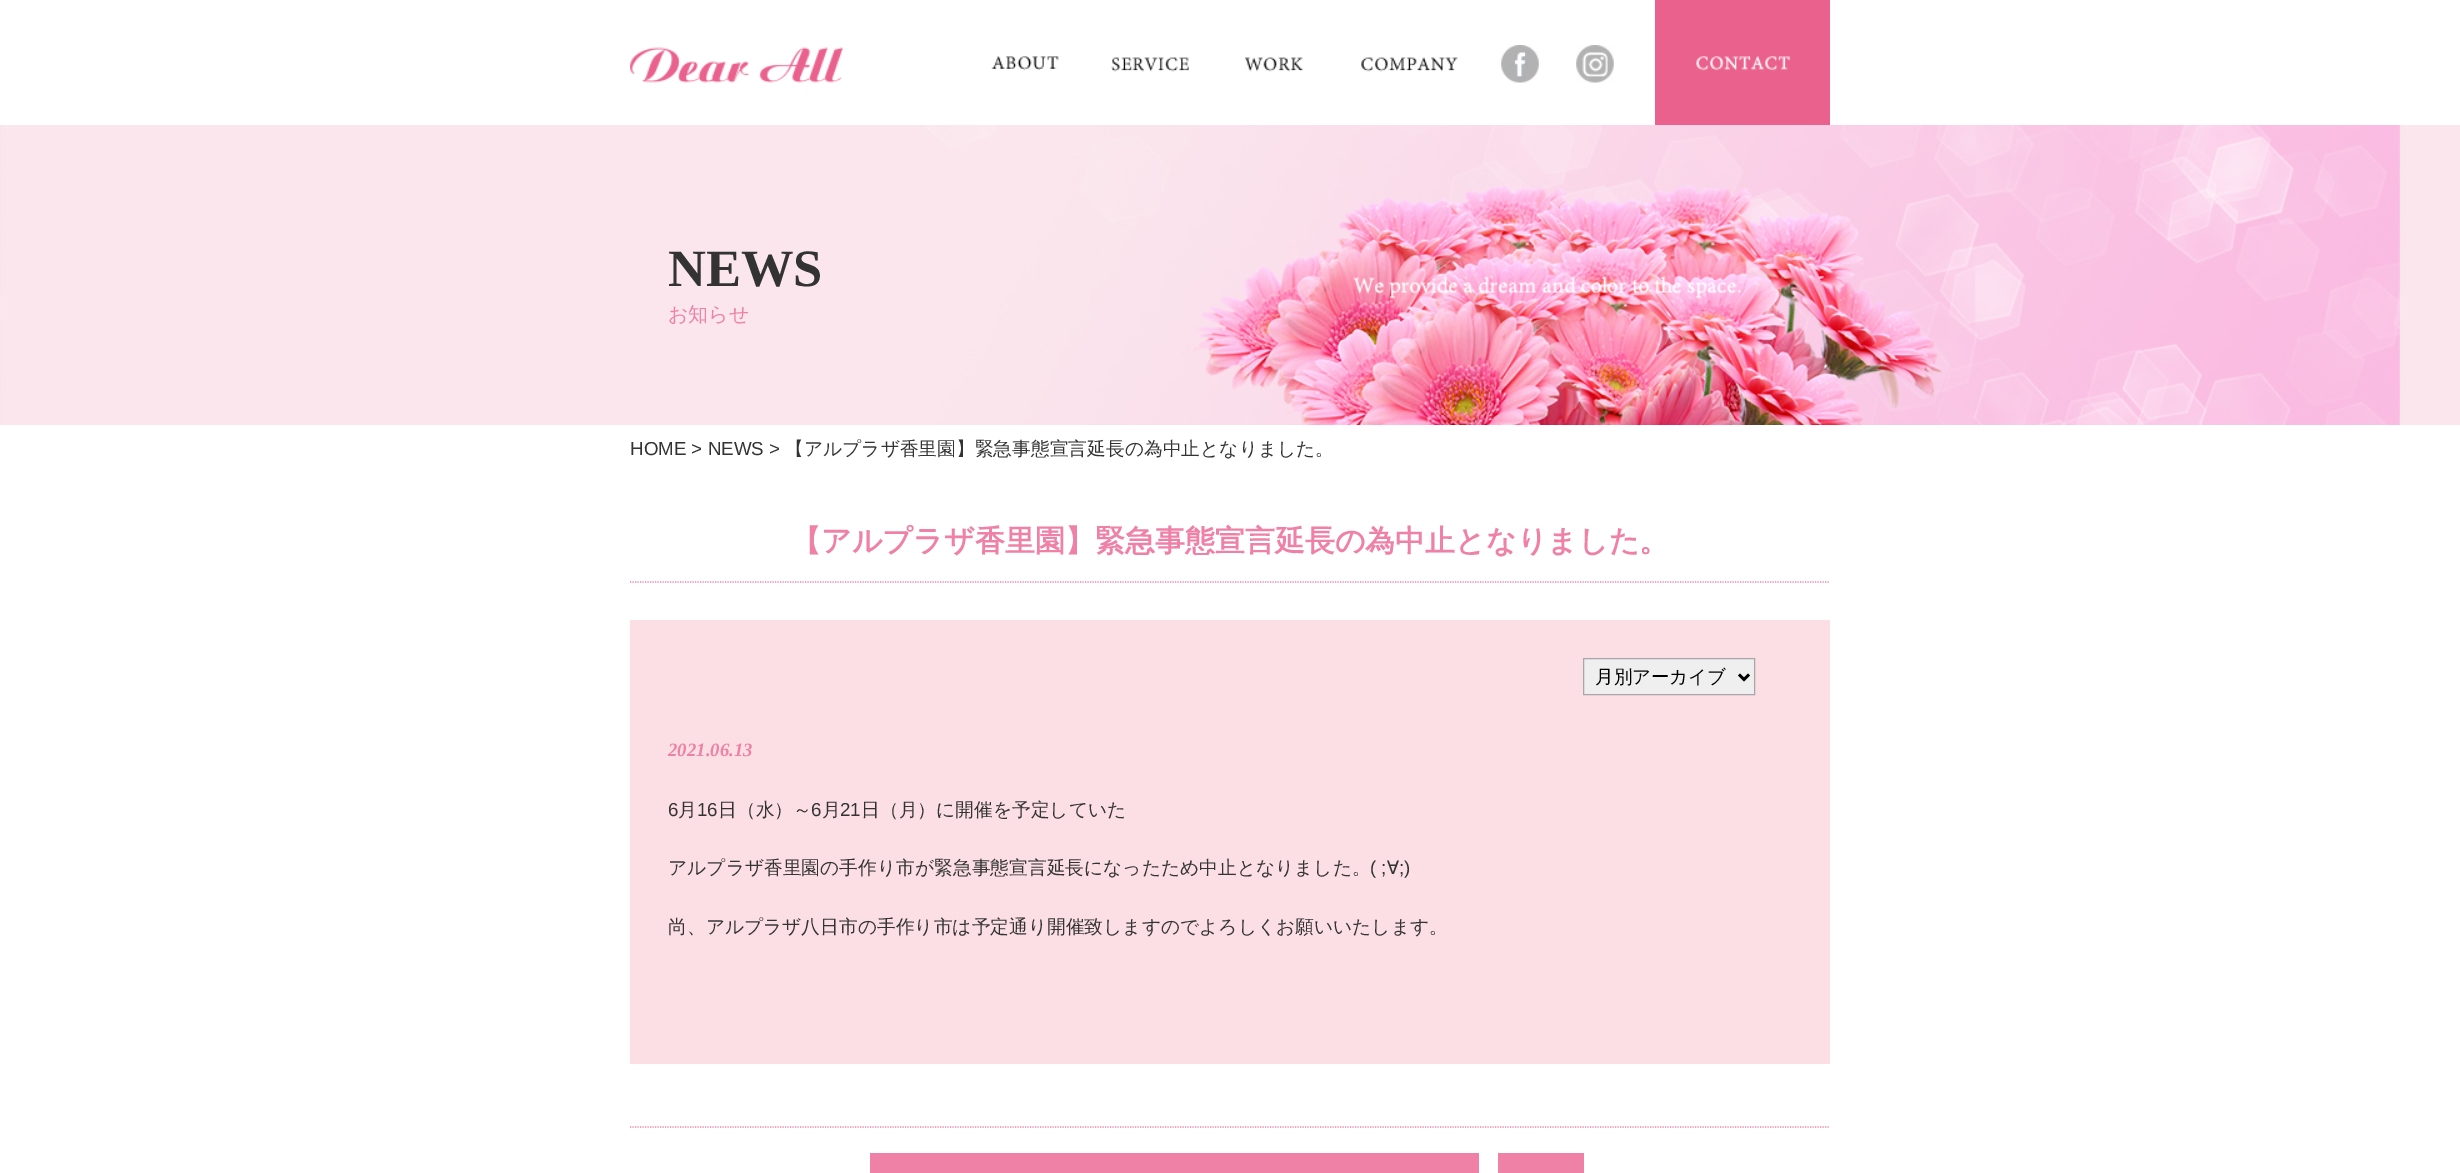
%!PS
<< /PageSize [2460 1173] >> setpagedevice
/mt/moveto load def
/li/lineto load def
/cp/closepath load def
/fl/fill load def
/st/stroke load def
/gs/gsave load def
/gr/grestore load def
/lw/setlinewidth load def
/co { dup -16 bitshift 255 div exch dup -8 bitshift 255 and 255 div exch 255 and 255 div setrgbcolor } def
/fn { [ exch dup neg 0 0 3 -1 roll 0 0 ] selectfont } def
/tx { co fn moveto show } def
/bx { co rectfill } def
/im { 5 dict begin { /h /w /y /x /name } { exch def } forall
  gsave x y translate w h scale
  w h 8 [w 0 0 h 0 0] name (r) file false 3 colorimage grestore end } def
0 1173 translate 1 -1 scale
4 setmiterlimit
0 0 2460 1173 16#FFFFFF bx
(media/1.raw) 630 47 213 36 im
(media/2.raw) 991 56 68 15 im
(media/3.raw) 1111 57 78 15 im
(media/4.raw) 1244 57 59 15 im
(media/5.raw) 1361 57 97 15 im
(media/6.raw) 1501 45 38 38 im
(media/7.raw) 1576 45 38 38 im
(media/8.raw) 1655 0 175 125 im
(media/9.raw) 0 125 2460 300 im
(media/10.raw) 1193 185 750 240 im
16#EE81A5 co
1.2 lw
[1.25 1.25] 0 setdash
630 582 mt 1830 582 li st
630 620 1200 444 16#FCDFE5 bx
16#EFEFEF co
1583.5 658.5 mt 1754.5 658.5 li 1754.5 694.5 li 1583.5 694.5 li cp gs fl gr
16#A7A6AA co
1 lw
[] 0 setdash
st
16#000000 co
2.5 lw
1739 674.5 mt 1744 679.5 li 1749 674.5 li st
16#EE81A5 co
1.2 lw
[1.25 1.25] 0 setdash
630 1127 mt 1830 1127 li st
870 1153 609 20 16#EE81A5 bx
1498 1153 86 20 16#EE81A5 bx
(NEWS) 668 286 /LiberationSerif-Bold 52.5 16#333333 tx
(お知らせ) 668 321 /WenQuanYiZenHei-Medium 20 16#EE81A5 tx
(HOME > NEWS >) 630 455 /LiberationSans-Regular 18.75 16#333333 tx
(【アルプラザ香里園】緊急事態宣言延長の為中止となりました。) 785 455 /WenQuanYiZenHei-Medium 18.75 16#333333 tx
(【アルプラザ香里園】緊急事態宣言延長の為中止となりました。) 791 551 /WenQuanYiZenHei-Bold 30 16#EE81A5 tx
(月別アーカイブ) 1595 683 /WenQuanYiZenHei-Medium 18.5 16#000000 tx
(2021.06.13) 668 756 /LiberationSerif-BoldItalic 18.75 16#EE81A5 tx
(6) 668 816 /LiberationSans-Regular 18.75 16#333333 tx
(月) 678 816 /WenQuanYiZenHei-Medium 18.75 16#333333 tx
(16) 697 816 /LiberationSans-Regular 18.75 16#333333 tx
(日（水）～) 718 816 /WenQuanYiZenHei-Medium 18.75 16#333333 tx
(6) 811 816 /LiberationSans-Regular 18.75 16#333333 tx
(月) 822 816 /WenQuanYiZenHei-Medium 18.75 16#333333 tx
(21) 840 816 /LiberationSans-Regular 18.75 16#333333 tx
(日（月）に開催を予定していた) 861 816 /WenQuanYiZenHei-Medium 18.75 16#333333 tx
(アルプラザ香里園の手作り市が緊急事態宣言延長になったため中止となりました。) 668 874 /WenQuanYiZenHei-Medium 18.75 16#333333 tx
(\( ;) 1370 874 /LiberationSans-Regular 18.75 16#333333 tx
(∀) 1387 874 /WenQuanYiZenHei-Medium 18.75 16#333333 tx
(;\)) 1399 874 /LiberationSans-Regular 18.75 16#333333 tx
(尚、アルプラザ八日市の手作り市は予定通り開催致しますのでよろしくお願いいたします。) 668 933 /WenQuanYiZenHei-Medium 18.75 16#333333 tx
showpage
